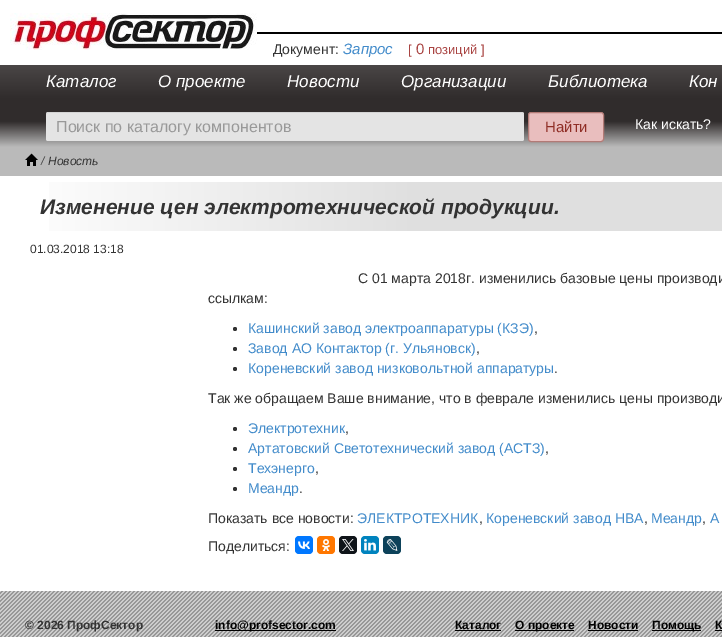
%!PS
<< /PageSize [722 637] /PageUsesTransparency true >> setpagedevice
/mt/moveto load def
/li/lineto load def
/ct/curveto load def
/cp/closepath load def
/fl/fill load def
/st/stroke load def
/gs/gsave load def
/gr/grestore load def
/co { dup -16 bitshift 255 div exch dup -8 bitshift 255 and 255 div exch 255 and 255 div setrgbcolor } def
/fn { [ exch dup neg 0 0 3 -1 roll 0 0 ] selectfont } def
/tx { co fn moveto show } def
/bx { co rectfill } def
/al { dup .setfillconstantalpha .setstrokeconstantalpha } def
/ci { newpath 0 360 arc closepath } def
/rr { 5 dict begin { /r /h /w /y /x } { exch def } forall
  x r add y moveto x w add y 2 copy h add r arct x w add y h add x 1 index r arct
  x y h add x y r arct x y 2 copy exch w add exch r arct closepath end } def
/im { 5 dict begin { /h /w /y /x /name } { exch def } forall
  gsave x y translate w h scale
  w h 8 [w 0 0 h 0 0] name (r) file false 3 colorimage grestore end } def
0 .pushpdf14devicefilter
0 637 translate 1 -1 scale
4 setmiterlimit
0 0 722 637 16#FFFFFF bx
(media/1.raw) 10 13 247 37 im
257 32 465 2 16#000000 bx
gs 0 65 mt 722 65 li 722 99 li 0 99 li cp clip newpath
<< /ShadingType 2 /ColorSpace /DeviceRGB /Coords [517 65 517 99] /Extend [true true] /Function << /FunctionType 2 /Domain [0 1] /C0 [.29 .275 .275] /C1 [.188 .173 .173] /N 1 >> >> shfill gr
gs 0 99 mt 722 99 li 722 151 li 0 151 li cp clip newpath
<< /ShadingType 2 /ColorSpace /DeviceRGB /Coords [620 99 620 151] /Extend [true true] /Function << /FunctionType 3 /Domain [0 1] /Functions [<< /FunctionType 2 /Domain [0 1] /C0 [.188 .173 .173] /C1 [.188 .173 .173] /N 1 >> << /FunctionType 2 /Domain [0 1] /C0 [.188 .173 .173] /C1 [.729 .729 .729] /N 1 >> << /FunctionType 2 /Domain [0 1] /C0 [.729 .729 .729] /C1 [.729 .729 .729] /N 1 >>] /Bounds [.43 .92] /Encode [0 1 0 1 0 1] >> >> shfill gr
16#E4E4E4 co
46 112 478 29 2 rr fl
0.07 al
16#000000 co
48 113 mt 522 113 li 523 113 524 114 524 115 ct 523 113 li 523 112 li 285 112 li 48 112 li 46 113 li 46 115 li 46 114 47 113 48 113 ct cp fl
1 al
16#E9BEBE co
528.5 112.5 75 29 2.5 rr gs fl gr
16#B27A76 co
st
0 151 722 25 16#BABABA bx
(media/2.raw) 25 153 13 13 im
gs 49 182 mt 722 182 li 722 231 li 49 231 li cp clip newpath
<< /ShadingType 2 /ColorSpace /DeviceRGB /Coords [30 207 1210 206] /Extend [true true] /Function << /FunctionType 3 /Domain [0 1] /Functions [<< /FunctionType 2 /Domain [0 1] /C0 [.996 .996 .996] /C1 [.875 .875 .875] /N 1 >> << /FunctionType 2 /Domain [0 1] /C0 [.875 .875 .875] /C1 [.875 .875 .875] /N 1 >> << /FunctionType 2 /Domain [0 1] /C0 [.875 .875 .875] /C1 [.996 .996 .996] /N 1 >>] /Bounds [.33 .67] /Encode [0 1 0 1 0 1] >> >> shfill gr
16#333333 co
235 329 2 ci fl
235 349 2 ci fl
235 369 2 ci fl
235 429 2 ci fl
235 449 2 ci fl
235 469 2 ci fl
235 489 2 ci fl
16#0077FF co
295 536 18 18 4 rr fl
(media/3.raw) 298 541 12 8 im
16#FF7700 co
317 536 18 18 4 rr fl
(media/4.raw) 322 539 8 12 im
16#0F1419 co
339 536 18 18 4 rr fl
(media/5.raw) 342 539 12 12 im
16#0083BE co
361 536 18 18 4 rr fl
(media/6.raw) 364 539 12 12 im
16#0D425A co
383 536 18 18 4 rr fl
(media/7.raw) 386 539 12 12 im
(media/8.raw) 0 591 722 46 im
215 630 121 1 16#000000 bx
455 630 46 1 16#000000 bx
515 630 59 1 16#000000 bx
588 630 50 1 16#000000 bx
652 630 49 1 16#000000 bx
715 630 7 1 16#000000 bx
(Документ:) 273 54 /LiberationSans-Regular 14 16#333333 tx
(Запрос) 343 54 /LiberationSans-Italic 15 16#428BCA tx
([) 408 54 /LiberationSans-Regular 13 16#A94442 tx
(0) 416 54 /LiberationSans-Regular 15 16#A94442 tx
(позиций ]) 428 54 /LiberationSans-Regular 13 16#A94442 tx
(Каталог) 46 87 /LiberationSans-Italic 17 16#FFFFFF tx
(О проекте) 158 87 /LiberationSans-Italic 17 16#FFFFFF tx
(Новости) 287 87 /LiberationSans-Italic 17 16#FFFFFF tx
(Организации) 401 87 /LiberationSans-Italic 17 16#FFFFFF tx
(Библиотека) 548 87 /LiberationSans-Italic 17 16#FFFFFF tx
(Кон) 689 87 /LiberationSans-Italic 17 16#FFFFFF tx
(Поиск по каталогу компонентов) 56 132 /LiberationSans-Regular 16 16#999999 tx
(Найти) 545 132 /LiberationSans-Regular 15 16#8F2D25 tx
(Как искать?) 635 129 /LiberationSans-Regular 14 16#FFFFFF tx
(/) 41 165 /LiberationSans-Italic 12 16#4A4A4A tx
(Новость) 48 165 /LiberationSans-Italic 12 16#333333 tx
(Изменение цен электротехнической продукции.) 40 214 /LiberationSans-BoldItalic 21 16#333333 tx
(01.03.2018 13:18) 30 253 /LiberationSans-Regular 12 16#333333 tx
(С 01 марта 2018г. изменились базовые цены производи) 358 283 /LiberationSans-Regular 14 16#333333 tx
(ссылкам:) 208 303 /LiberationSans-Regular 14 16#333333 tx
(Кашинский завод электроаппаратуры \(КЗЭ\)) 248 333 /LiberationSans-Regular 14 16#428BCA tx
(,) 534 333 /LiberationSans-Regular 14 16#333333 tx
(Завод АО Контактор \(г. Ульяновск\)) 248 353 /LiberationSans-Regular 14 16#428BCA tx
(,) 476 353 /LiberationSans-Regular 14 16#333333 tx
(Кореневский завод низковольтной аппаратуры) 248 373 /LiberationSans-Regular 14 16#428BCA tx
(.) 554 373 /LiberationSans-Regular 14 16#333333 tx
(Так же обращаем Ваше внимание, что в феврале изменились цены производи) 208 403 /LiberationSans-Regular 14 16#333333 tx
(Электротехник) 248 433 /LiberationSans-Regular 14 16#428BCA tx
(,) 345 433 /LiberationSans-Regular 14 16#333333 tx
(Артатовский Светотехнический завод \(АСТЗ\)) 248 453 /LiberationSans-Regular 14 16#428BCA tx
(,) 545 453 /LiberationSans-Regular 14 16#333333 tx
(Техэнерго) 248 473 /LiberationSans-Regular 14 16#428BCA tx
(,) 315 473 /LiberationSans-Regular 14 16#333333 tx
(Меандр) 248 493 /LiberationSans-Regular 14 16#428BCA tx
(.) 299 493 /LiberationSans-Regular 14 16#333333 tx
(Показать все новости:) 208 523 /LiberationSans-Regular 14 16#333333 tx
(ЭЛЕКТРОТЕХНИК) 357 523 /LiberationSans-Regular 14 16#428BCA tx
(,) 479 523 /LiberationSans-Regular 14 16#333333 tx
(Кореневский завод НВА) 486 523 /LiberationSans-Regular 14 16#428BCA tx
(,) 644 523 /LiberationSans-Regular 14 16#333333 tx
(Меандр) 651 523 /LiberationSans-Regular 14 16#428BCA tx
(,) 702 523 /LiberationSans-Regular 14 16#333333 tx
(А) 710 523 /LiberationSans-Regular 14 16#428BCA tx
(Поделиться:) 208 551 /LiberationSans-Regular 14 16#333333 tx
(© 2026 ПрофСектор) 25 629 /LiberationSans-Bold 12 16#333333 tx
(info@profsector.com) 215 629 /LiberationSans-Bold 12 16#000000 tx
(Каталог) 455 629 /LiberationSans-Bold 12 16#000000 tx
(О проекте) 515 629 /LiberationSans-Bold 12 16#000000 tx
(Новости) 588 629 /LiberationSans-Bold 12 16#000000 tx
(Помощь) 652 629 /LiberationSans-Bold 12 16#000000 tx
(К) 715 629 /LiberationSans-Bold 12 16#000000 tx
.poppdf14devicefilter showpage
